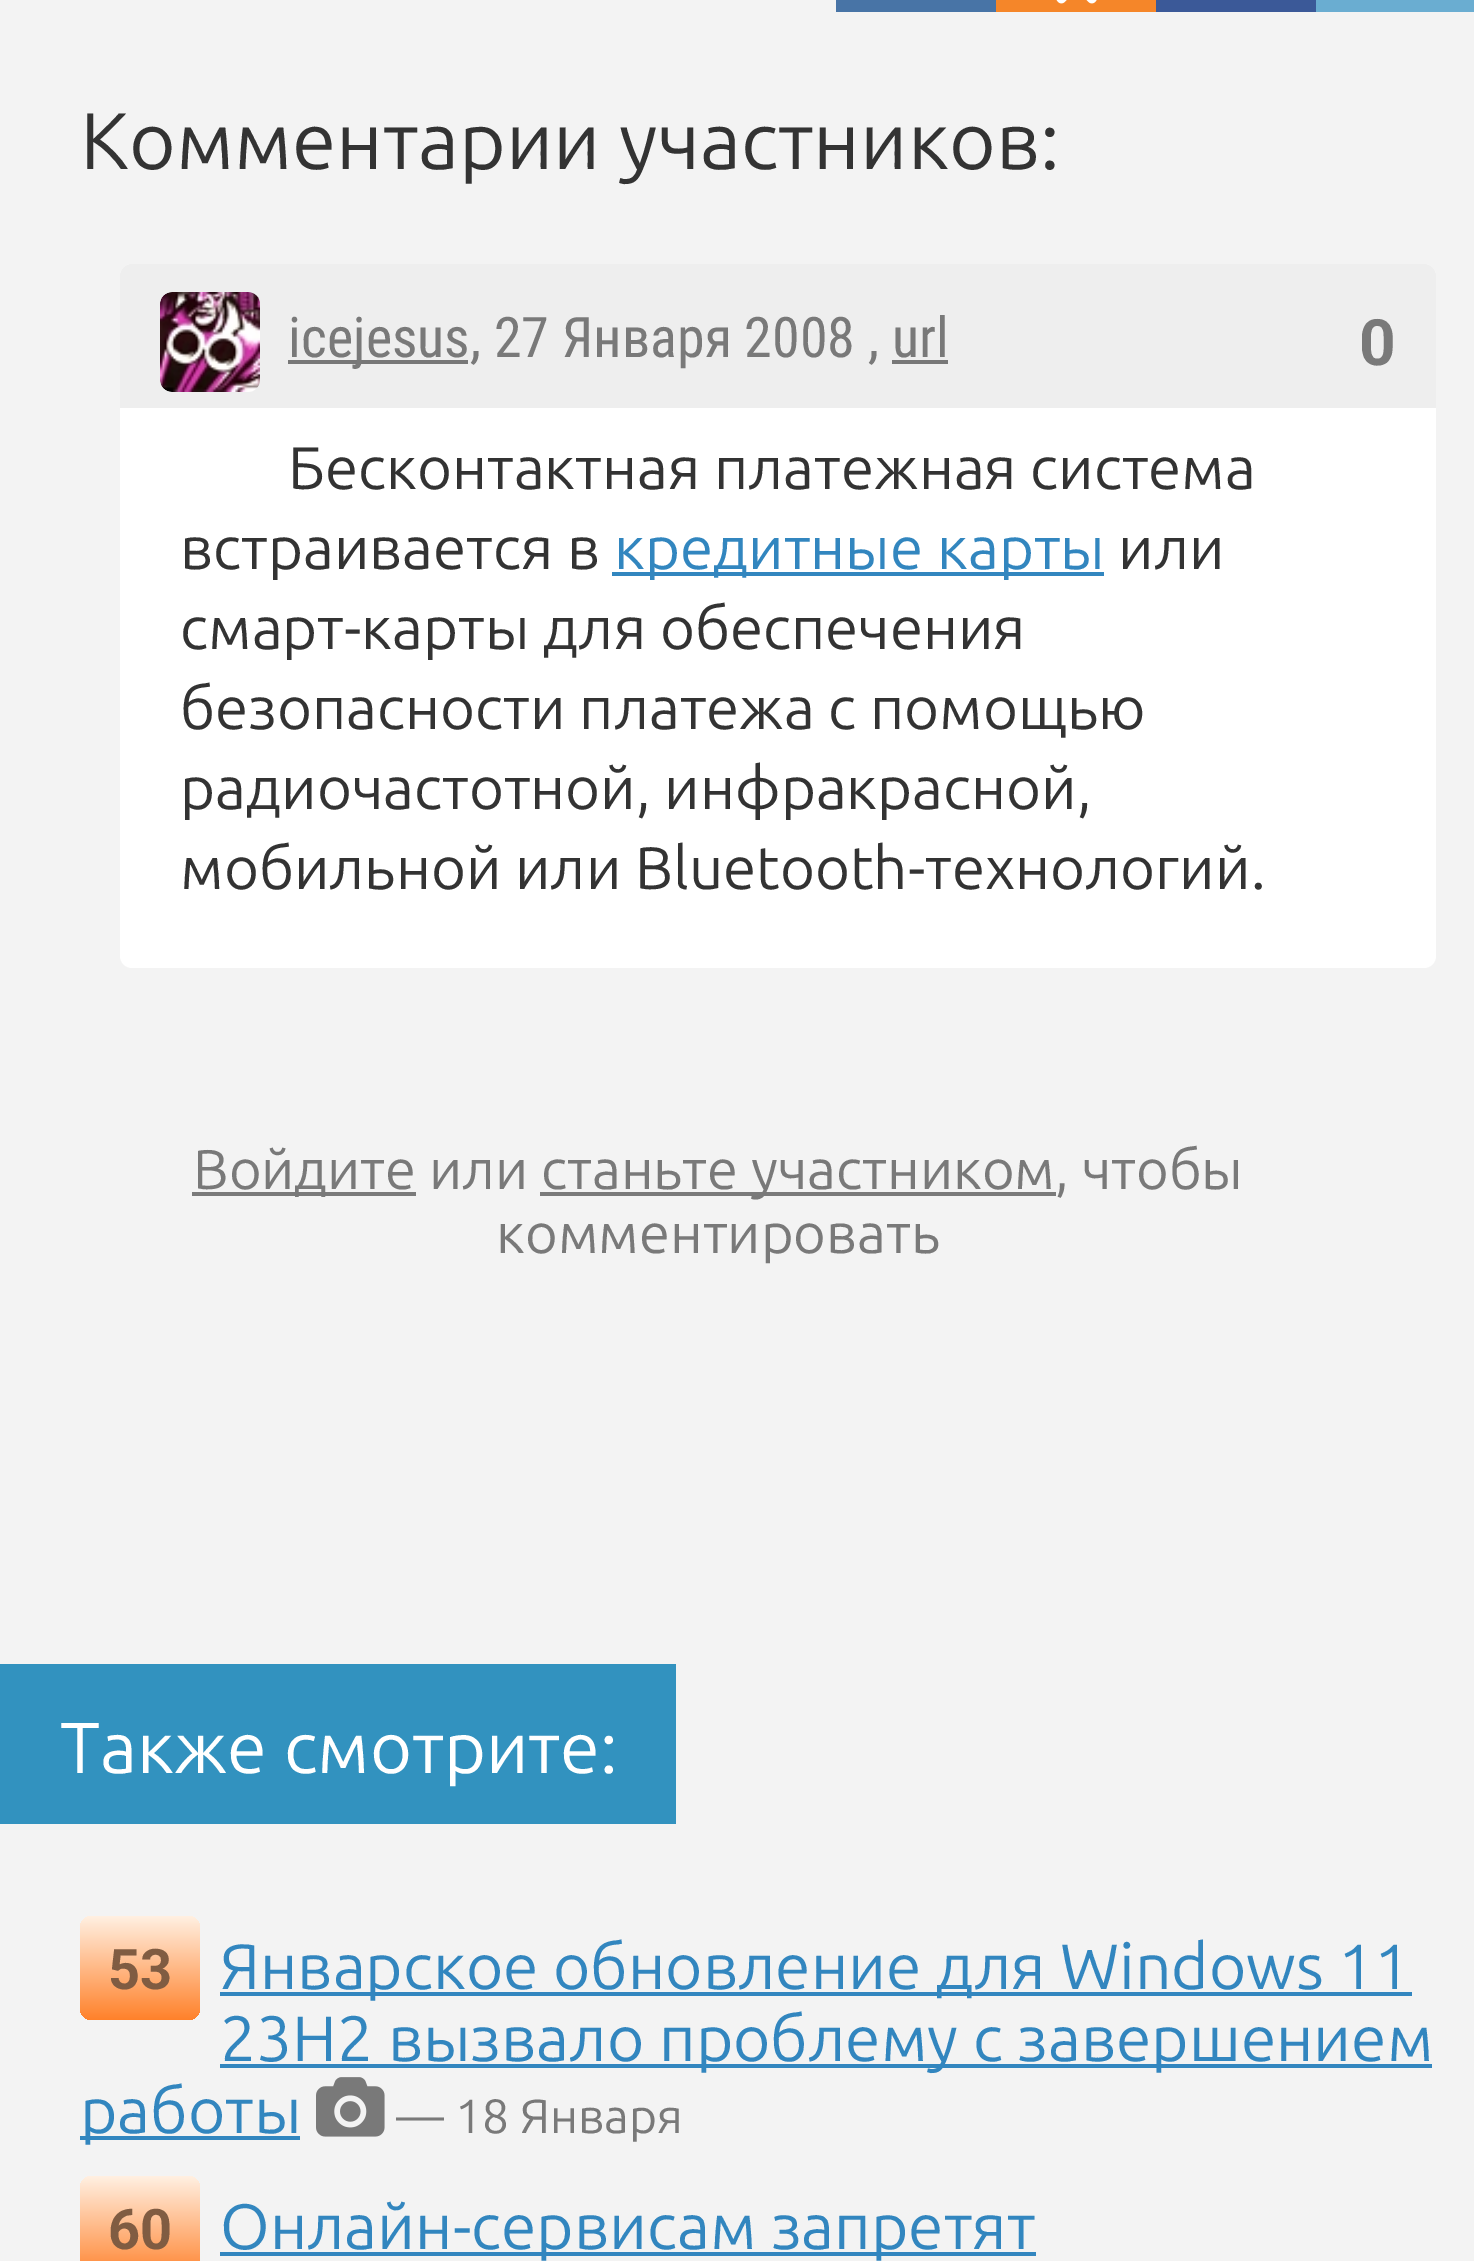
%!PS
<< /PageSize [1474 2261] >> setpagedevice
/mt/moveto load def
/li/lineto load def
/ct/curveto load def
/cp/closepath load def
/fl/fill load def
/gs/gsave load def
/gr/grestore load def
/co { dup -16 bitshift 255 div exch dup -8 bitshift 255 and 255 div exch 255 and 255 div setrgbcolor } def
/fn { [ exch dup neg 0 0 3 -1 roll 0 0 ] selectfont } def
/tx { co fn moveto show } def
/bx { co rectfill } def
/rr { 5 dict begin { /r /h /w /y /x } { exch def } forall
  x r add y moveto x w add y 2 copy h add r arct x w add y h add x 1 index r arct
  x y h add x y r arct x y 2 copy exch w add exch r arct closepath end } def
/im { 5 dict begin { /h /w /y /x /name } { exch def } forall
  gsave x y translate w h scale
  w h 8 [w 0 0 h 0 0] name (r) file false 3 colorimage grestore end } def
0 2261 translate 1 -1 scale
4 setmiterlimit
0 0 1474 2261 16#F3F3F3 bx
836 0 160 12 16#4874A6 bx
996 0 160 12 16#F58629 bx
(media/1.raw) 1056 0 41 4 im
1156 0 160 12 16#3B5998 bx
1316 0 158 12 16#6AADD1 bx
16#FFFFFF co
120 264 1316 704 12 rr fl
16#EEEEEE co
132 264 mt 1424 264 li 1430.5 264 1436 269.5 1436 276 ct 1436 408 li 120 408 li 120 276 li 120 269.5 125.5 264 132 264 ct cp fl
(media/2.raw) 160 292 100 100 im
288 360 180 4 16#777777 bx
612 572 492 4 16#3286BF bx
192 1192 224 4 16#7A7A7A bx
540 1192 516 4 16#7A7A7A bx
0 1664 676 160 16#3292BF bx
220 1992 1192 4 16#3286BF bx
220 2064 1212 4 16#3286BF bx
80 2136 220 4 16#3286BF bx
(media/3.raw) 316 2077 69 60 im
gs 80 1916 120 104 12 rr clip newpath
<< /ShadingType 2 /ColorSpace /DeviceRGB /Coords [140 1916 140 2020] /Extend [true true] /Function << /FunctionType 2 /Domain [0 1] /C0 [1 .941 .886] /C1 [1 .506 .165] /N 1 >> >> shfill gr
gs 80 2176 120 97 12 rr clip newpath
<< /ShadingType 2 /ColorSpace /DeviceRGB /Coords [140 2176 140 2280] /Extend [true true] /Function << /FunctionType 2 /Domain [0 1] /C0 [1 .941 .886] /C1 [1 .506 .165] /N 1 >> >> shfill gr
220 2252 816 4 16#3286BF bx
(Комментарии участников:) 80 169 /Ubuntu-Regular 80 16#333333 tx
(icejesus, 27 Января 2008 , url) 288 357 /RobotoCondensed-Regular 56 16#797979 tx
(0) 1359 365 /Roboto-Bold 64 16#797979 tx
892 360 56 4 16#777777 bx
(Бесконтактная платежная система) 288 489 /Ubuntu-Regular 60 16#333333 tx
(встраивается в) 180 569 /Ubuntu-Regular 60 16#333333 tx
(кредитные карты) 614 569 /Ubuntu-Regular 60 16#3286BF tx
(или) 1118 569 /Ubuntu-Regular 60 16#333333 tx
(смарт-карты для обеспечения) 180 649 /Ubuntu-Regular 60 16#333333 tx
(безопасности платежа с помощью) 180 729 /Ubuntu-Regular 60 16#333333 tx
(радиочастотной, инфракрасной,) 180 809 /Ubuntu-Regular 60 16#333333 tx
(мобильной или Bluetooth-технологий.) 180 889 /Ubuntu-Regular 60 16#333333 tx
(Войдите) 193 1189 /Ubuntu-Regular 56 16#797979 tx
(или) 429 1189 /Ubuntu-Regular 56 16#797979 tx
(станьте участником) 541 1189 /Ubuntu-Regular 56 16#797979 tx
(, чтобы) 1055 1189 /Ubuntu-Regular 56 16#797979 tx
(комментировать) 496 1253 /Ubuntu-Regular 56 16#797979 tx
(Также смотрите:) 60 1773 /Ubuntu-Regular 72 16#FFFFFF tx
(Январское обновление для Windows 11) 220 1989 /Ubuntu-Regular 64 16#3286BF tx
(23H2 вызвало проблему с завершением) 220 2061 /Ubuntu-Regular 64 16#3286BF tx
(работы) 80 2133 /Ubuntu-Regular 64 16#3286BF tx
(— 18 Января) 396 2133 /Ubuntu-Regular 48 16#797979 tx
(53) 108 1989 /Roboto-Bold 56 16#805C42 tx
(60) 108 2249 /Roboto-Bold 56 16#805C42 tx
(Онлайн-сервисам запретят) 220 2249 /Ubuntu-Regular 64 16#3286BF tx
showpage
